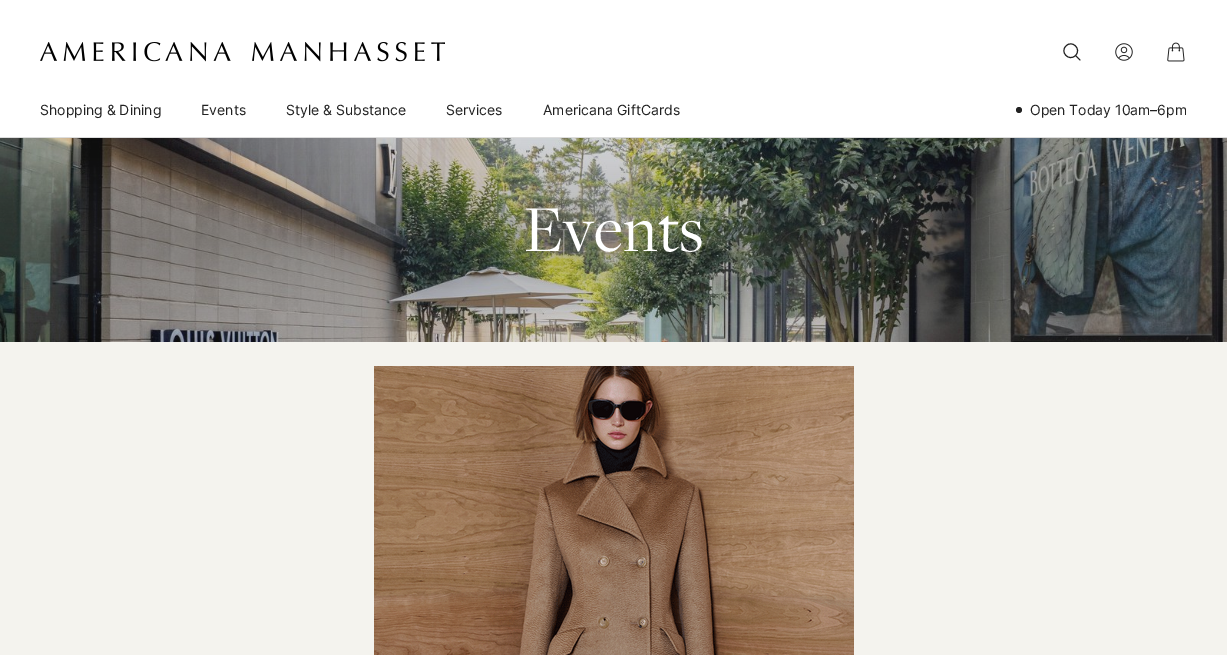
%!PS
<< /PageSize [1227 655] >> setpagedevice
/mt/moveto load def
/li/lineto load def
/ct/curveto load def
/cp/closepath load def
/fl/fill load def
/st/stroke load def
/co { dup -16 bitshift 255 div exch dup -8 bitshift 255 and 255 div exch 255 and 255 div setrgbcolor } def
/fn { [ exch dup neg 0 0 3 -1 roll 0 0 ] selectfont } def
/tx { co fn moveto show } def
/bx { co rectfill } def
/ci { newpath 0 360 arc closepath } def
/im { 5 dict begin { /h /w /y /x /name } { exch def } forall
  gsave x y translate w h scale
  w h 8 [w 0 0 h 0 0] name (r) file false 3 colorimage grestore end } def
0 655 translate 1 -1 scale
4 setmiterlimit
0 0 1227 655 16#F4F3EE bx
0 0 1227 137 16#FFFFFF bx
0 137 1227 1 16#DDDDDD bx
(media/1.raw) 40 42 405 20 im
16#222222 co
1 setlinecap
1 setlinejoin
1080 60 mt 1075.5 55.5 li 1075.5 55.5 mt 1082 49 1072 39.5 1066 46 ct 1059.5 52 1069 62 1075.5 55.5 ct cp st
(media/2.raw) 1115 43 18 18 im
(media/3.raw) 1167 42 18 20 im
1019 110 3 ci fl
(media/4.raw) 0 138 1227 204 im
(media/5.raw) 374 366 480 289 im
(Shopping & Dining) 40 115 /Inter-Regular 14 16#222222 tx
(Events) 201 115 /Inter-Regular 14 16#222222 tx
(Style & Substance) 286 115 /Inter-Regular 14 16#222222 tx
(Services) 446 115 /Inter-Regular 14 16#222222 tx
(Americana GiftCards) 543 115 /Inter-Regular 14 16#222222 tx
(Open Today 10am–6pm) 1030 115 /Inter-Regular 14 16#222222 tx
(Events) 524 251 /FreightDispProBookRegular-Regular 68 16#FFFFFF tx
showpage
